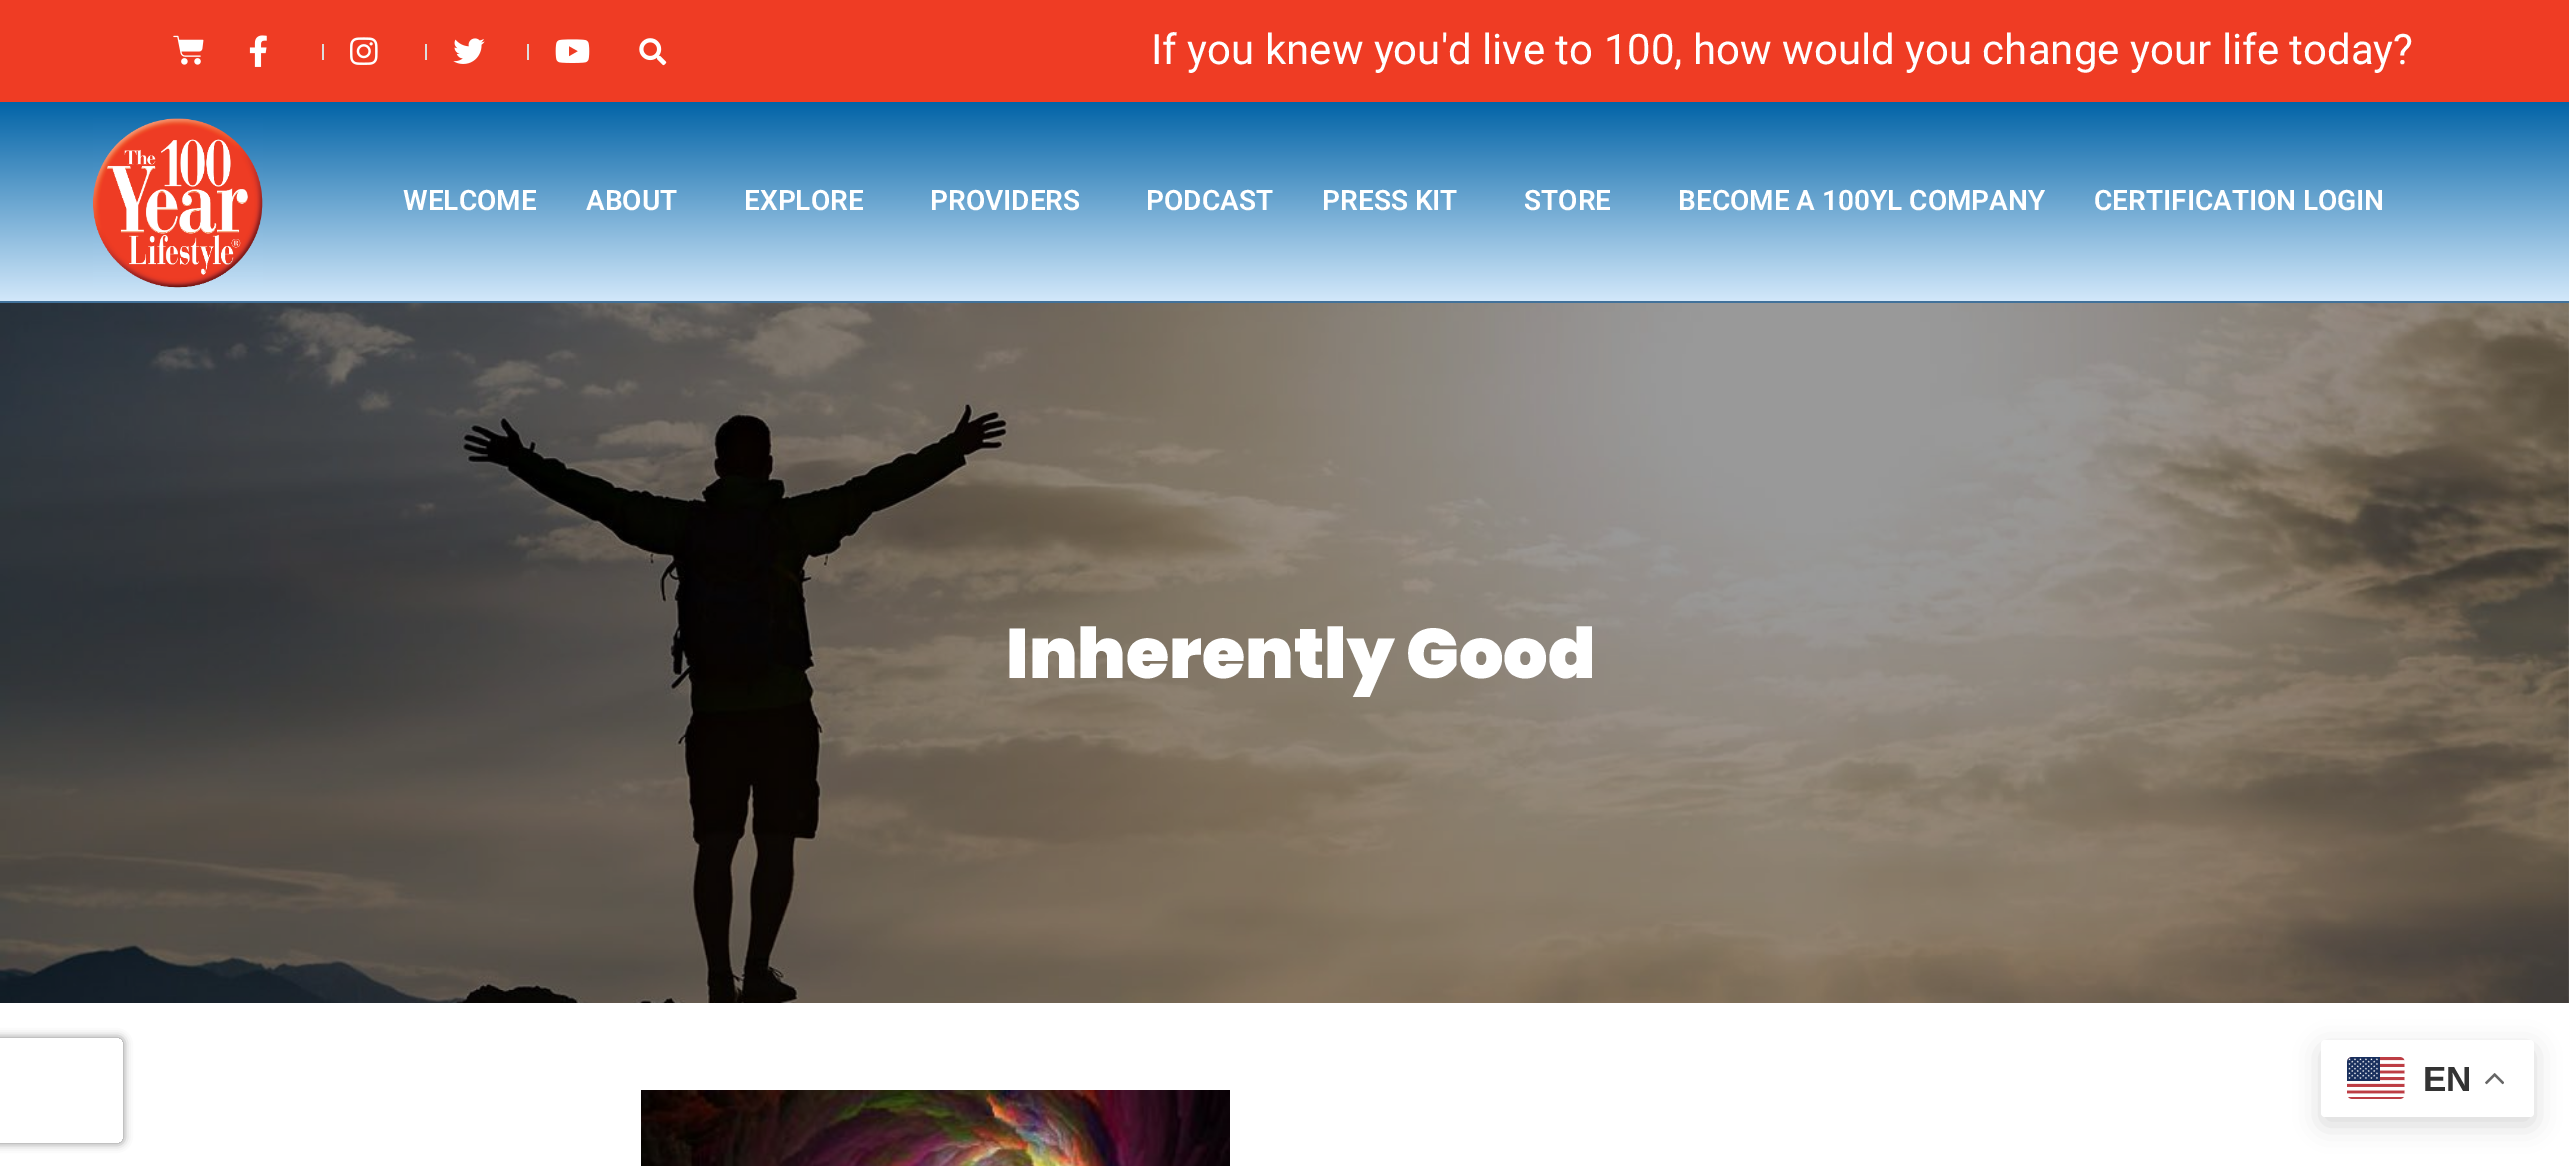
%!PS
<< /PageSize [2569 1166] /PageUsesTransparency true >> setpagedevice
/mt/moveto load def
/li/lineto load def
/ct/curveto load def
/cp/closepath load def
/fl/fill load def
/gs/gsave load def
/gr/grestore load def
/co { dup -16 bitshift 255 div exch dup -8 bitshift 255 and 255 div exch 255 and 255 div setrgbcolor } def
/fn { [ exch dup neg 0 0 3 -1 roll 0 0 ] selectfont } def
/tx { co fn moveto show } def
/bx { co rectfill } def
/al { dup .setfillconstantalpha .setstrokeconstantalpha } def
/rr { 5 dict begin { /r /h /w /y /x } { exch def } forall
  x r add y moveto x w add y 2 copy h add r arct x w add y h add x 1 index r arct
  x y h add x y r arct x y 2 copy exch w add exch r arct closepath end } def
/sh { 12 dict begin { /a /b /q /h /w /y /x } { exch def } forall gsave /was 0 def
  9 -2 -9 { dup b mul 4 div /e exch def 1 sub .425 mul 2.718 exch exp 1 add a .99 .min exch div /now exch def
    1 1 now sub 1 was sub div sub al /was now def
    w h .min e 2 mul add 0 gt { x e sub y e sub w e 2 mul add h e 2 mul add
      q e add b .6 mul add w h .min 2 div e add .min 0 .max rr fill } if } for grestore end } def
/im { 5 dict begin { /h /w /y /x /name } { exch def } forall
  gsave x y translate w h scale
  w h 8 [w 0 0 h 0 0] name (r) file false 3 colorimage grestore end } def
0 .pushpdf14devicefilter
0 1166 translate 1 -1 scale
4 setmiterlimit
0 0 2569 1166 16#FFFFFF bx
0 0 2569 102 16#EF3C24 bx
(media/1.raw) 173 35 31 30 im
(media/2.raw) 249 35 18 32 im
322 44 2 16 16#DDDDDD bx
(media/3.raw) 350 37 28 28 im
425 44 2 16 16#DDDDDD bx
(media/4.raw) 453 38 32 26 im
527 44 2 16 16#DDDDDD bx
(media/5.raw) 555 39 35 24 im
(media/6.raw) 639 38 28 28 im
gs 0 102 mt 2569 102 li 2569 301 li 0 301 li cp clip newpath
<< /ShadingType 2 /ColorSpace /DeviceRGB /Coords [1285 101 1285 301] /Extend [true true] /Function << /FunctionType 2 /Domain [0 1] /C0 [.004 .275 .498] /C1 [.451 .718 .937] /N 1 >> >> shfill gr
0 301 2569 2 16#41729B bx
0.68 al
gs 0 102 mt 2569 102 li 2569 301 li 0 301 li cp clip newpath
<< /ShadingType 2 /ColorSpace /DeviceRGB /Coords [1285 101 1285 301] /Extend [true true] /Function << /FunctionType 2 /Domain [0 1] /C0 [.004 .439 .725] /C1 [1 1 1] /N 1 >> >> shfill gr
1 al
(media/7.raw) 93 118 170 170 im
(media/8.raw) 0 303 2569 700 im
(media/9.raw) 641 1090 589 76 im
gs
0 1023 mt 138 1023 li 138 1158 li 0 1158 li cp -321 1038 mt 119 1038 li 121 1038 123 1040 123 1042 ct 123 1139 li 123 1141 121 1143 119 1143 ct -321 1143 li -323 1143 -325 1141 -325 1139 ct -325 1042 li -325 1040 -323 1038 -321 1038 ct cp eoclip newpath
16#808080 co
-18 1038 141 105 4 4.5 1 sh
gr
16#000000 co
2321 1048 213 77 4 13 .15 sh
16#FFFFFF co
2321 1040 213 77 4 rr fl
(media/10.raw) 2347 1057 58 42 im
(media/11.raw) 2485 1073 19 12 im
(If you knew you'd live to 100, how would you change your life today?) 1151 64 /Roboto-Regular 42 16#FFFFFF tx
(WELCOME) 403 210 /Roboto-SemiBold 28 16#FFFFFF tx
(ABOUT) 586 210 /Roboto-SemiBold 28 16#FFFFFF tx
(EXPLORE) 744 210 /Roboto-SemiBold 28 16#FFFFFF tx
(PROVIDERS) 930 210 /Roboto-SemiBold 28 16#FFFFFF tx
(PODCAST) 1146 210 /Roboto-SemiBold 28 16#FFFFFF tx
(PRESS KIT) 1322 210 /Roboto-SemiBold 28 16#FFFFFF tx
(STORE) 1524 210 /Roboto-SemiBold 28 16#FFFFFF tx
(BECOME A 100YL COMPANY) 1678 210 /Roboto-SemiBold 28 16#FFFFFF tx
(CERTIFICATION LOGIN) 2094 210 /Roboto-SemiBold 28 16#FFFFFF tx
(Inherently Good) 1006 678 /Poppins-Black 70 16#FFFFFF tx
(EN) 2423 1091 /LiberationSans-Bold 35 16#333333 tx
.poppdf14devicefilter showpage
